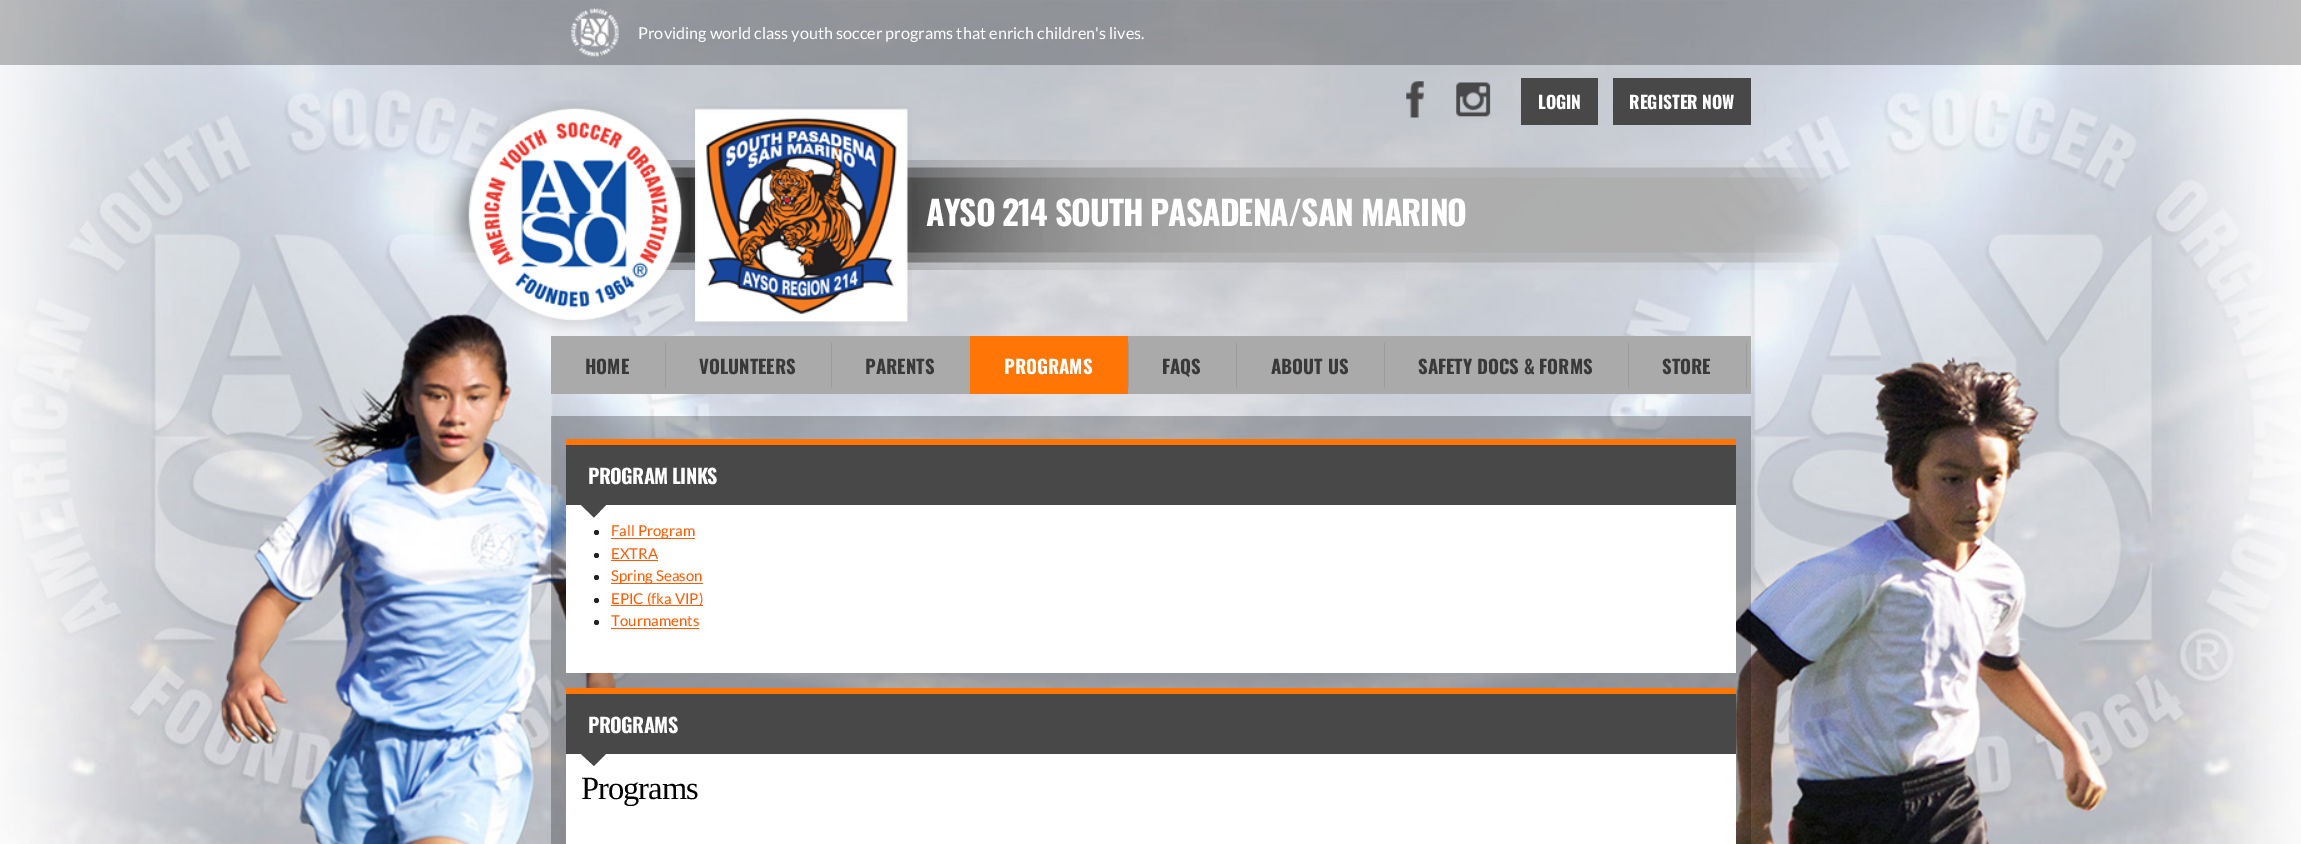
%!PS
<< /PageSize [2301 844] /PageUsesTransparency true >> setpagedevice
/mt/moveto load def
/li/lineto load def
/cp/closepath load def
/fl/fill load def
/co { dup -16 bitshift 255 div exch dup -8 bitshift 255 and 255 div exch 255 and 255 div setrgbcolor } def
/fn { [ exch dup neg 0 0 3 -1 roll 0 0 ] selectfont } def
/tx { co fn moveto show } def
/bx { co rectfill } def
/al { dup .setfillconstantalpha .setstrokeconstantalpha } def
/ci { newpath 0 360 arc closepath } def
/im { 5 dict begin { /h /w /y /x /name } { exch def } forall
  gsave x y translate w h scale
  w h 8 [w 0 0 h 0 0] name (r) file false 3 colorimage grestore end } def
0 .pushpdf14devicefilter
0 844 translate 1 -1 scale
4 setmiterlimit
0 0 2301 844 16#FFFFFF bx
(media/1.raw) 0 0 2301 844 im
0.25 al
0 0 2301 65 16#000000 bx
1 al
(media/2.raw) 571 8 48 49 im
(media/3.raw) 1406 81 18 37 im
(media/4.raw) 1456 82 35 35 im
1521 78 77 47 16#484848 bx
1613 78 138 47 16#484848 bx
(media/5.raw) 434 160 1425 110 im
(media/6.raw) 460 100 229 231 im
(media/7.raw) 690 106 222 220 im
551 336 1200 58 16#AAAAAB bx
665 343 1 45 16#9B9B9B bx
831 343 1 45 16#9B9B9B bx
970 336 158 58 16#FF7607 bx
1128 343 1 45 16#9B9B9B bx
1236 343 1 45 16#9B9B9B bx
1384 343 1 45 16#9B9B9B bx
1628 343 1 45 16#9B9B9B bx
1746 343 1 45 16#9B9B9B bx
0.25 al
551 416 1200 428 16#000000 bx
1 al
566 445 1170 60 16#484848 bx
566 439 1170 6 16#FF7607 bx
566 505 1170 168 16#FFFFFF bx
16#484848 co
581 505 mt 606 505 li 594 517.5 li cp fl
16#222222 co
596.5 532.5 2.5 ci fl
611 538 84 1 16#FF5A00 bx
16#222222 co
596.5 555.5 2.5 ci fl
611 560 47 1 16#FF5A00 bx
16#222222 co
596.5 577.5 2.5 ci fl
611 583 92 1 16#FF5A00 bx
16#222222 co
596.5 600.5 2.5 ci fl
611 605 92 1 16#FF5A00 bx
16#222222 co
596.5 622.5 2.5 ci fl
611 628 88 1 16#FF5A00 bx
566 694 1170 60 16#484848 bx
566 688 1170 6 16#FF7607 bx
566 754 1170 90 16#FFFFFF bx
16#484848 co
581 754 mt 606 754 li 594 766 li cp fl
(Providing world class youth soccer programs that enrich children's lives.) 638 39 /Lato-Regular 16.25 16#FFFFFF tx
(LOGIN) 1538 109 /Oswald-Bold 17.5 16#FFFFFF tx
(REGISTER NOW) 1629 109 /Oswald-Bold 17.5 16#FFFFFF tx
/Oswald-Bold 33.75 fn
926 226 mt -1 0 (AYSO 214 SOUTH PASADENA/SAN MARINO) ashow
(HOME) 585 374 /Oswald-Bold 18.75 16#393939 tx
(VOLUNTEERS) 699 374 /Oswald-Bold 18.75 16#393939 tx
(PARENTS) 865 374 /Oswald-Bold 18.75 16#393939 tx
(PROGRAMS) 1004 374 /Oswald-Bold 18.75 16#FFFFFF tx
(FAQS) 1162 374 /Oswald-Bold 18.75 16#393939 tx
(ABOUT US) 1271 374 /Oswald-Bold 18.75 16#393939 tx
(SAFETY DOCS & FORMS) 1418 374 /Oswald-Bold 18.75 16#393939 tx
(STORE) 1662 374 /Oswald-Bold 18.75 16#393939 tx
/Oswald-Bold 20 fn
16#FFFFFF co
588 484 mt -.6 0 (PROGRAM LINKS) ashow
(Fall Program) 611 536 /Lato-Regular 15 16#FF5A00 tx
(EXTRA) 611 559 /Lato-Regular 15 16#FF5A00 tx
(Spring Season) 611 581 /Lato-Regular 15 16#FF5A00 tx
(EPIC \(fka VIP\)) 611 604 /Lato-Regular 15 16#FF5A00 tx
(Tournaments) 611 626 /Lato-Regular 15 16#FF5A00 tx
/Oswald-Bold 20 fn
16#FFFFFF co
588 733 mt -.6 0 (PROGRAMS) ashow
/LiberationSerif-Regular 32.5 fn
16#000000 co
581 799 mt -1 0 (Programs) ashow
.poppdf14devicefilter showpage
